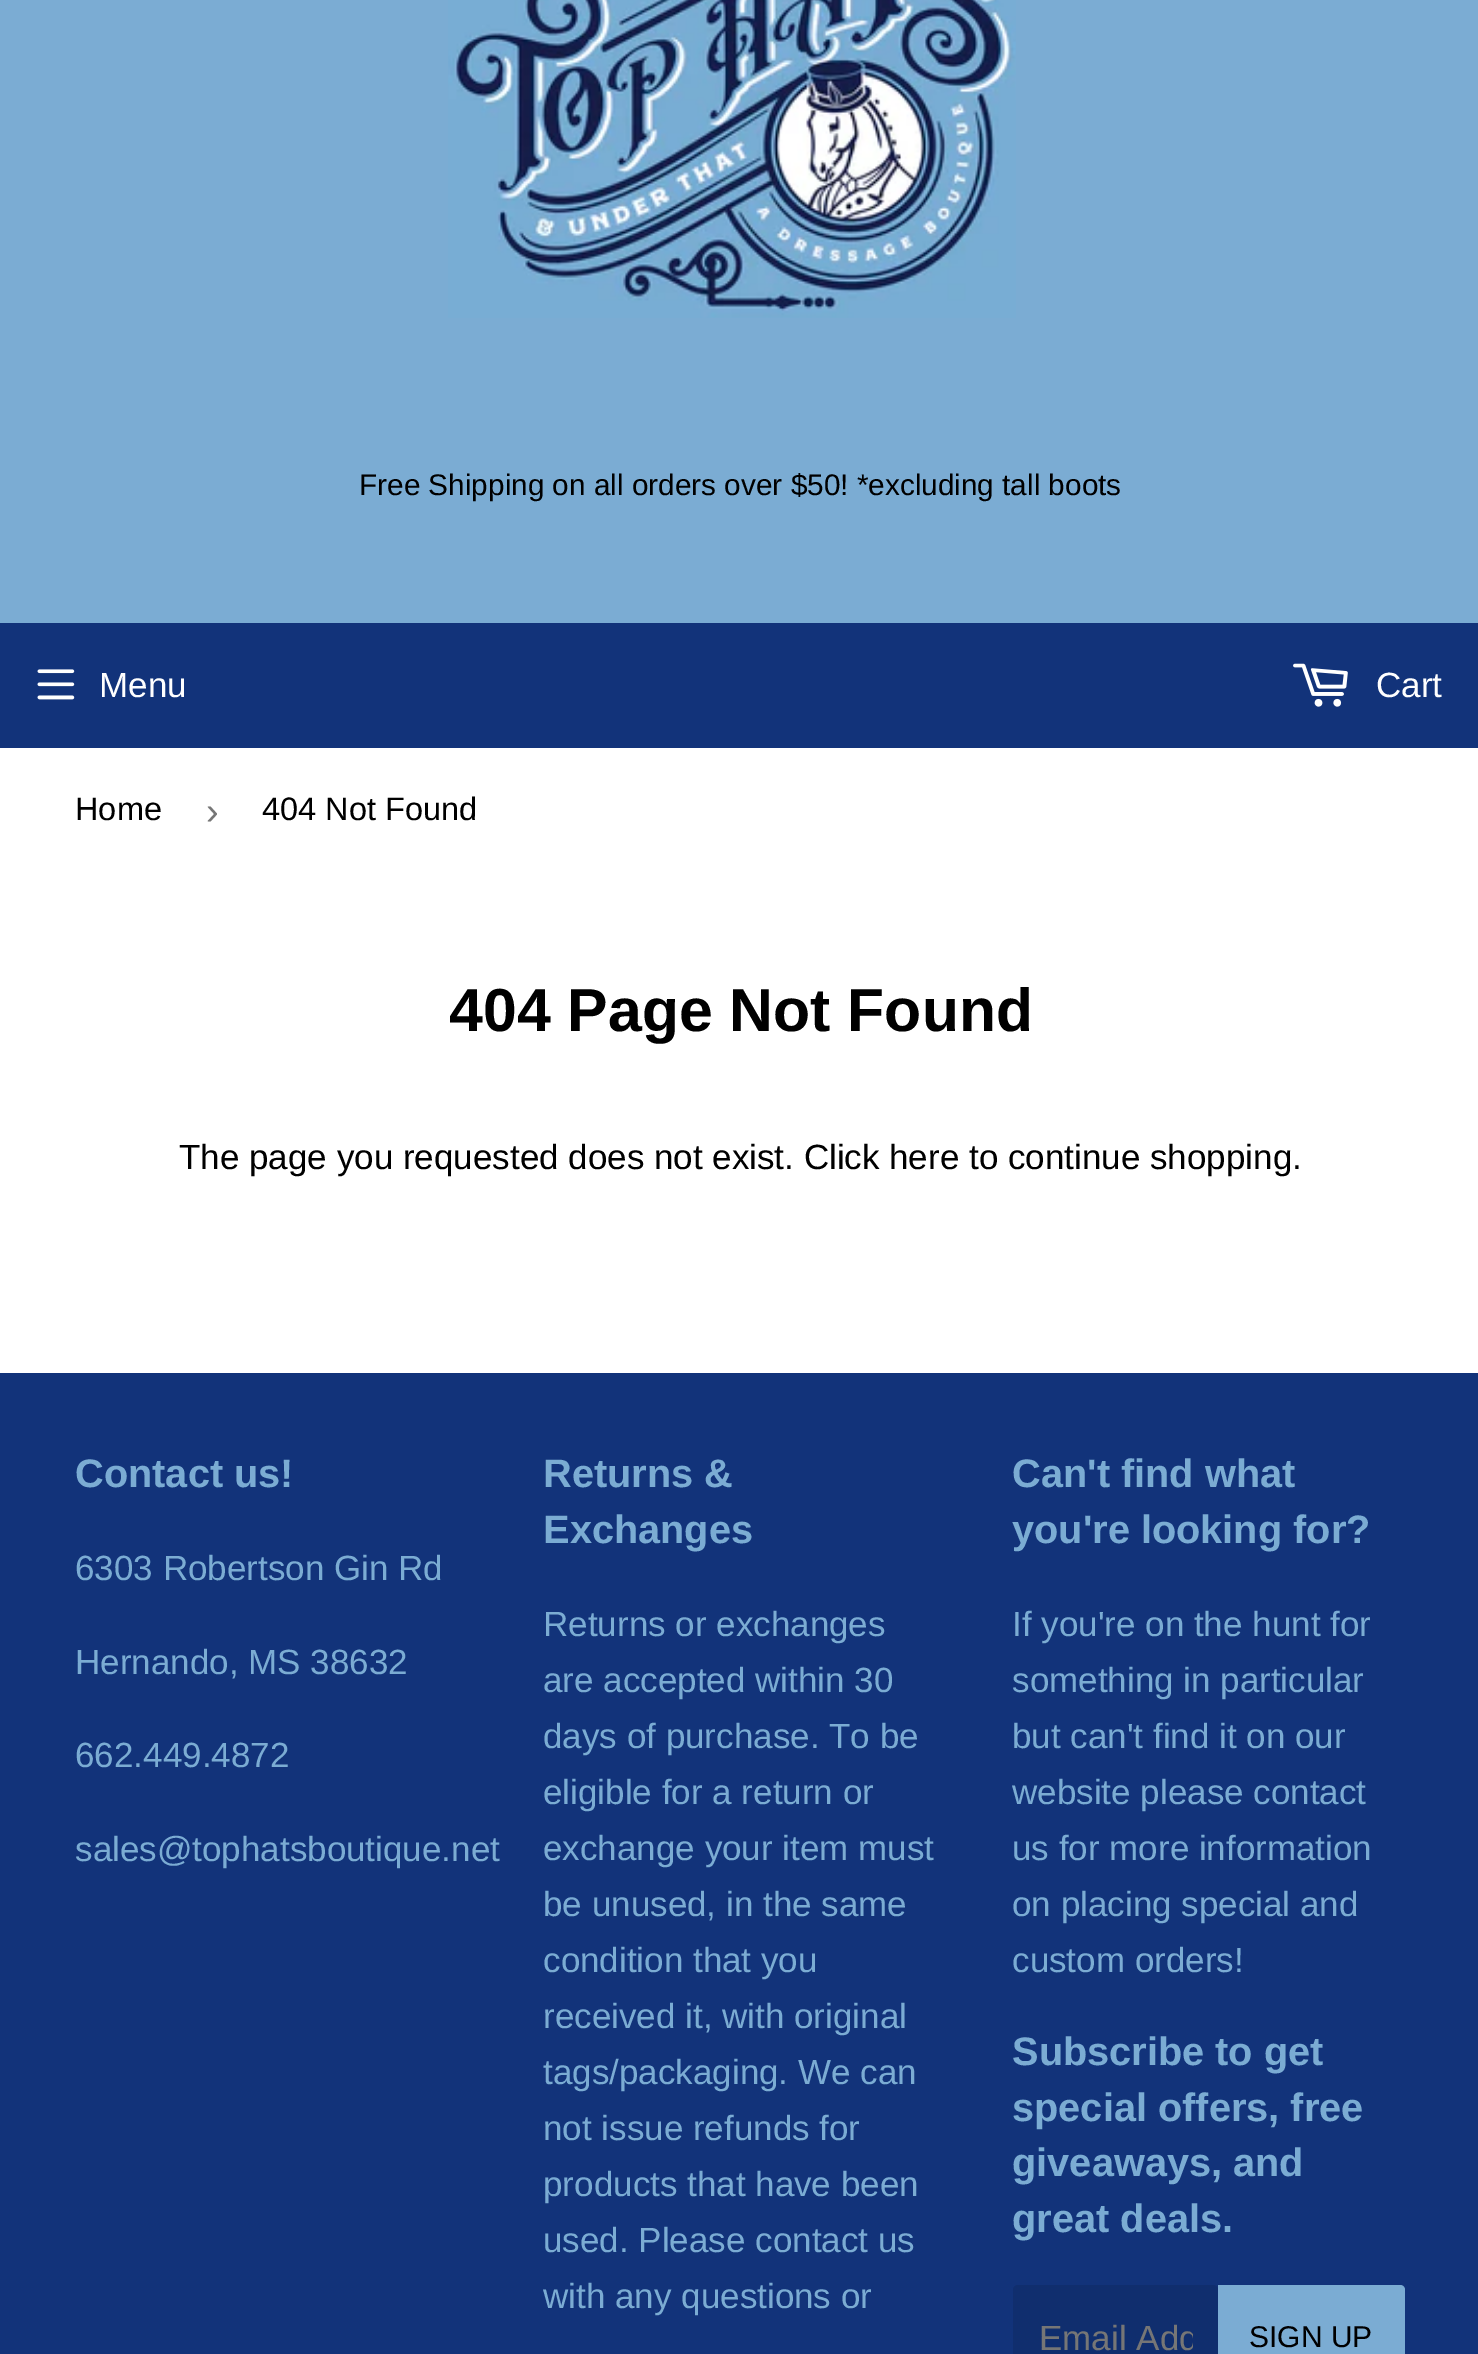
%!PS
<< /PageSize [1478 2354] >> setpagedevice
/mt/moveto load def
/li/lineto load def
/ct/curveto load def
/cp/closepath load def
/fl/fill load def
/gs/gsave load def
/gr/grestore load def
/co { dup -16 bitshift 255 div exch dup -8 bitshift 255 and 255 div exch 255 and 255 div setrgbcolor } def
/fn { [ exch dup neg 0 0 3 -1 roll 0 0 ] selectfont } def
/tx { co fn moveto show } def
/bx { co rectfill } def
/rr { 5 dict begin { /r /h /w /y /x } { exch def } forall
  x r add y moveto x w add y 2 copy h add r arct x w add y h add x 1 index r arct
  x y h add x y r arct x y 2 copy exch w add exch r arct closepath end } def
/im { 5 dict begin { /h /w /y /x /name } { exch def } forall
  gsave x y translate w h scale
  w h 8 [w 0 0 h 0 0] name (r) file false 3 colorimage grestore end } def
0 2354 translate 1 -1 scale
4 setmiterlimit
0 0 1478 2354 16#FFFFFF bx
0 0 1478 623 16#7BACD3 bx
(media/1.raw) 448 0 568 318 im
0 623 1478 125 16#12337A bx
(media/2.raw) 37 669 38 31 im
(media/3.raw) 1293 663 55 44 im
0 1373 1478 981 16#12337A bx
16#102E6E co
1013 2285 205 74 5 rr fl
16#7BACD3 co
1218 2285 mt 1400 2285 li 1403 2285 1405 2287 1405 2290 ct 1405 2354 li 1405 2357 1403 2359 1400 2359 ct 1218 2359 li cp fl
(Free Shipping on all orders over $50! *excluding tall boots) 359 495 /LiberationSans-Regular 29.75 16#000000 tx
(Menu) 99 697 /LiberationSans-Regular 35 16#FFFFFF tx
(Cart) 1376 697 /LiberationSans-Regular 35 16#FFFFFF tx
(Home) 75 820 /LiberationSans-Regular 32.5 16#000000 tx
(›) 206 824 /LiberationSans-Regular 38 16#767676 tx
(404 Not Found) 262 820 /LiberationSans-Regular 32.5 16#000000 tx
(404 Page Not Found) 449 1031 /LiberationSans-Bold 60.75 16#000000 tx
(The page you requested does not exist. Click) 179 1169 /LiberationSans-Regular 35 16#000000 tx
(here) 889 1169 /LiberationSans-Regular 35 16#000000 tx
(to continue shopping.) 969 1169 /LiberationSans-Regular 35 16#000000 tx
(Contact us!) 75 1487 /LiberationSans-Bold 39.75 16#7BACD3 tx
(6303 Robertson Gin Rd) 75 1580 /LiberationSans-Regular 35 16#7BACD3 tx
(Hernando, MS 38632) 75 1674 /LiberationSans-Regular 35 16#7BACD3 tx
(662.449.4872) 75 1767 /LiberationSans-Regular 35 16#7BACD3 tx
(sales@tophatsboutique.net) 75 1861 /LiberationSans-Regular 35 16#7BACD3 tx
(Returns &) 543 1487 /LiberationSans-Bold 39.75 16#7BACD3 tx
(Exchanges) 543 1543 /LiberationSans-Bold 39.75 16#7BACD3 tx
(Returns or exchanges) 543 1636 /LiberationSans-Regular 35 16#7BACD3 tx
(are accepted within 30) 543 1692 /LiberationSans-Regular 35 16#7BACD3 tx
(days of purchase. To be) 543 1748 /LiberationSans-Regular 35 16#7BACD3 tx
(eligible for a return or) 543 1804 /LiberationSans-Regular 35 16#7BACD3 tx
(exchange your item must) 543 1860 /LiberationSans-Regular 35 16#7BACD3 tx
(be unused, in the same) 543 1916 /LiberationSans-Regular 35 16#7BACD3 tx
(condition that you) 543 1972 /LiberationSans-Regular 35 16#7BACD3 tx
(received it, with original) 543 2028 /LiberationSans-Regular 35 16#7BACD3 tx
(tags/packaging. We can) 543 2084 /LiberationSans-Regular 35 16#7BACD3 tx
(not issue refunds for) 543 2140 /LiberationSans-Regular 35 16#7BACD3 tx
(products that have been) 543 2196 /LiberationSans-Regular 35 16#7BACD3 tx
(used. Please contact us) 543 2252 /LiberationSans-Regular 35 16#7BACD3 tx
(with any questions or) 543 2308 /LiberationSans-Regular 35 16#7BACD3 tx
(Can't find what) 1012 1487 /LiberationSans-Bold 39.75 16#7BACD3 tx
(you're looking for?) 1012 1543 /LiberationSans-Bold 39.75 16#7BACD3 tx
(If you're on the hunt for) 1012 1636 /LiberationSans-Regular 35 16#7BACD3 tx
(something in particular) 1012 1692 /LiberationSans-Regular 35 16#7BACD3 tx
(but can't find it on our) 1012 1748 /LiberationSans-Regular 35 16#7BACD3 tx
(website please contact) 1012 1804 /LiberationSans-Regular 35 16#7BACD3 tx
(us for more information) 1012 1860 /LiberationSans-Regular 35 16#7BACD3 tx
(on placing special and) 1012 1916 /LiberationSans-Regular 35 16#7BACD3 tx
(custom orders!) 1012 1972 /LiberationSans-Regular 35 16#7BACD3 tx
(Subscribe to get) 1012 2065 /LiberationSans-Bold 39.75 16#7BACD3 tx
(special offers, free) 1012 2121 /LiberationSans-Bold 39.75 16#7BACD3 tx
(giveaways, and) 1012 2176 /LiberationSans-Bold 39.75 16#7BACD3 tx
(great deals.) 1012 2232 /LiberationSans-Bold 39.75 16#7BACD3 tx
gs
1040 2318 153 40 rectclip
(Email Add) 1039 2350 /LiberationSans-Regular 35 16#767676 tx
gr
(SIGN UP) 1249 2347 /LiberationSans-Regular 30 16#000000 tx
showpage
